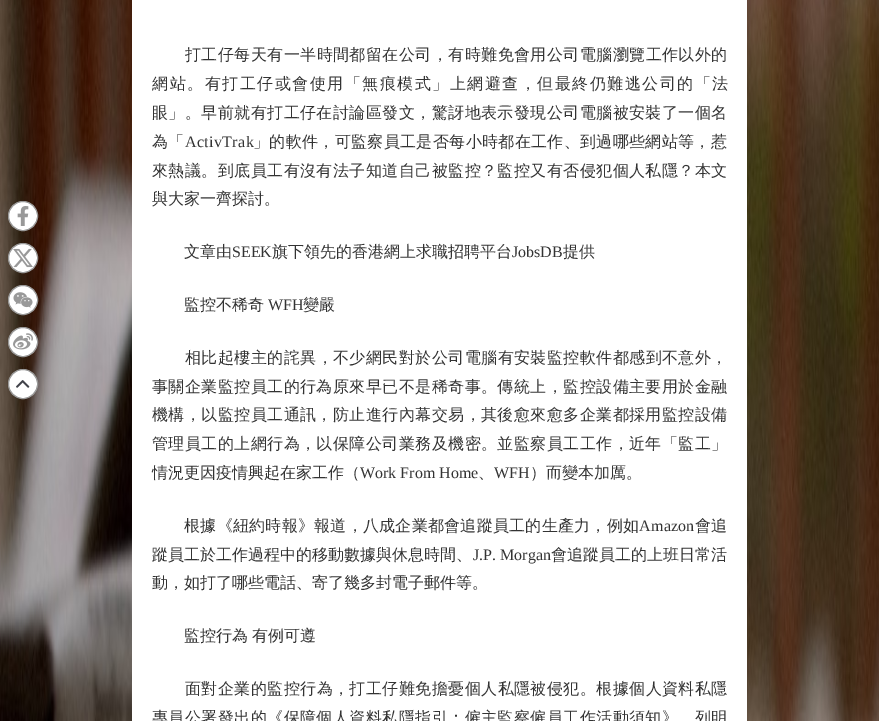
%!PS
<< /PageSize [879 721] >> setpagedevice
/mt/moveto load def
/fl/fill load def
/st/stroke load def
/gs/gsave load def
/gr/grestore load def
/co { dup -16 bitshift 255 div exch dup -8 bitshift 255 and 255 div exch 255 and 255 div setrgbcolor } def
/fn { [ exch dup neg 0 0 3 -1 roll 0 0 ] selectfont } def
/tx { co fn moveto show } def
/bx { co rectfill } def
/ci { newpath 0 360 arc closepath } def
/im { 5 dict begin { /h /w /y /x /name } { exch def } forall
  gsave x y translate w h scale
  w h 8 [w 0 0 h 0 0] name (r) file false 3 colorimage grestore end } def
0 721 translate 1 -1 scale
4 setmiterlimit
0 0 879 721 16#FFFFFF bx
(media/6.raw) 0 0 879 721 im
23 216 14.5 ci gs fl gr
16#999999 co
st
(media/1.raw) 17 206 12 20 im
16#FFFFFF co
23 258 14.5 ci gs fl gr
16#999999 co
st
(media/2.raw) 13 248 20 20 im
16#FFFFFF co
23 300 14.5 ci gs fl gr
16#999999 co
st
(media/3.raw) 13 292 20 16 im
16#FFFFFF co
23 342 14.5 ci gs fl gr
16#999999 co
st
(media/4.raw) 13 333 20 17 im
16#FFFFFF co
23 384 14.5 ci gs fl gr
16#999999 co
st
(media/5.raw) 16 380 14 8 im
132 0 615 721 16#FFFFFF bx
/WenQuanYiZenHei-Medium 16 fn
16#333333 co
185 60 mt .45 0 (打工仔每天有一半時間都留在公司，有時難免會用公司電腦瀏覽工作以外的) ashow
152 89 mt 1.5 0 (網站。有打工仔或會使用「無痕模式」上網避查，但最終仍難逃公司的「法) ashow
152 118 mt .45 0 (眼」。早前就有打工仔在討論區發文，驚訝地表示發現公司電腦被安裝了一個名) ashow
152 147 mt .35 0 (為「) ashow
/LiberationSerif-Regular 16 fn
185 147 mt .35 0 (ActivTrak) ashow
/WenQuanYiZenHei-Medium 16 fn
253 147 mt .35 0 (」的軟件，可監察員工是否每小時都在工作、到過哪些網站等，惹) ashow
152 176 mt .45 0 (來熱議。到底員工有沒有法子知道自己被監控？監控又有否侵犯個人私隱？本文) ashow
(與大家一齊探討。) 152 204 /WenQuanYiZenHei-Medium 16 16#333333 tx
(文章由) 184 257 /WenQuanYiZenHei-Medium 16 16#333333 tx
(SEEK) 232 257 /LiberationSerif-Regular 16 16#333333 tx
(旗下領先的香港網上求職招聘平台) 272 257 /WenQuanYiZenHei-Medium 16 16#333333 tx
(JobsDB) 512 257 /LiberationSerif-Regular 16 16#333333 tx
(提供) 563 257 /WenQuanYiZenHei-Medium 16 16#333333 tx
(監控不稀奇) 184 310 /WenQuanYiZenHei-Medium 16 16#333333 tx
(WFH) 268 310 /LiberationSerif-Regular 16 16#333333 tx
(變嚴) 303 310 /WenQuanYiZenHei-Medium 16 16#333333 tx
185 363 mt .45 0 (相比起樓主的詫異，不少網民對於公司電腦有安裝監控軟件都感到不意外，) ashow
152 392 mt .45 0 (事關企業監控員工的行為原來早已不是稀奇事。傳統上，監控設備主要用於金融) ashow
152 420 mt .45 0 (機構，以監控員工通訊，防止進行內幕交易，其後愈來愈多企業都採用監控設備) ashow
152 449 mt .45 0 (管理員工的上網行為，以保障公司業務及機密。並監察員工工作，近年「監工」) ashow
(情況更因疫情興起在家工作（) 152 478 /WenQuanYiZenHei-Medium 16 16#333333 tx
(Work From Home) 360 478 /LiberationSerif-Regular 16 16#333333 tx
(、) 478 478 /WenQuanYiZenHei-Medium 16 16#333333 tx
(WFH) 494 478 /LiberationSerif-Regular 16 16#333333 tx
(）而變本加厲。) 530 478 /WenQuanYiZenHei-Medium 16 16#333333 tx
184 531 mt .25 0 (根據《紐約時報》報道，八成企業都會追蹤員工的生產力，例如) ashow
/LiberationSerif-Regular 16 fn
639 531 mt .25 0 (Amazon) ashow
/WenQuanYiZenHei-Medium 16 fn
695 531 mt .25 0 (會追) ashow
(蹤員工於工作過程中的移動數據與休息時間、) 152 560 /WenQuanYiZenHei-Medium 16 16#333333 tx
(J.P. Morgan) 473 560 /LiberationSerif-Regular 16 16#333333 tx
(會追蹤員工的上班日常活) 551 560 /WenQuanYiZenHei-Medium 16 16#333333 tx
(動，如打了哪些電話、寄了幾多封電子郵件等。) 152 588 /WenQuanYiZenHei-Medium 16 16#333333 tx
(監控行為) 184 641 /WenQuanYiZenHei-Medium 16 16#333333 tx
(有例可遵) 252 641 /WenQuanYiZenHei-Medium 16 16#333333 tx
185 694 mt .45 0 (面對企業的監控行為，打工仔難免擔憂個人私隱被侵犯。根據個人資料私隱) ashow
152 723 mt .45 0 (專員公署發出的《保障個人資料私隱指引：僱主監察僱員工作活動須知》，列明) ashow
showpage
